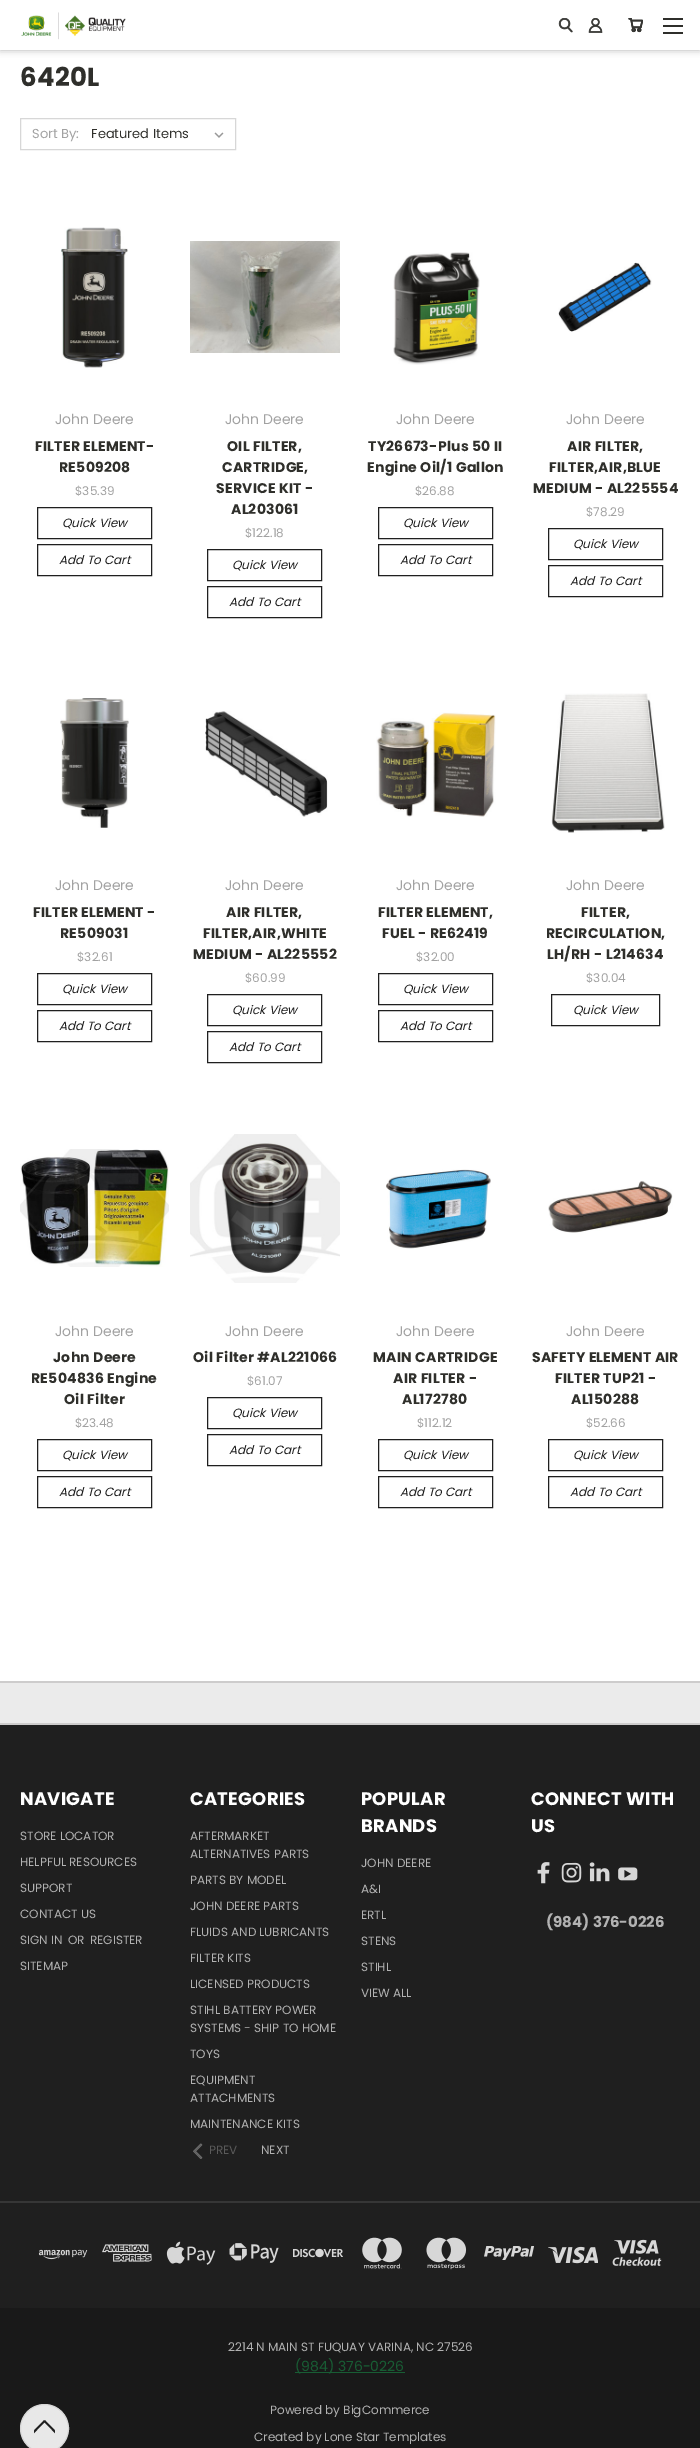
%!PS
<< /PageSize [700 2448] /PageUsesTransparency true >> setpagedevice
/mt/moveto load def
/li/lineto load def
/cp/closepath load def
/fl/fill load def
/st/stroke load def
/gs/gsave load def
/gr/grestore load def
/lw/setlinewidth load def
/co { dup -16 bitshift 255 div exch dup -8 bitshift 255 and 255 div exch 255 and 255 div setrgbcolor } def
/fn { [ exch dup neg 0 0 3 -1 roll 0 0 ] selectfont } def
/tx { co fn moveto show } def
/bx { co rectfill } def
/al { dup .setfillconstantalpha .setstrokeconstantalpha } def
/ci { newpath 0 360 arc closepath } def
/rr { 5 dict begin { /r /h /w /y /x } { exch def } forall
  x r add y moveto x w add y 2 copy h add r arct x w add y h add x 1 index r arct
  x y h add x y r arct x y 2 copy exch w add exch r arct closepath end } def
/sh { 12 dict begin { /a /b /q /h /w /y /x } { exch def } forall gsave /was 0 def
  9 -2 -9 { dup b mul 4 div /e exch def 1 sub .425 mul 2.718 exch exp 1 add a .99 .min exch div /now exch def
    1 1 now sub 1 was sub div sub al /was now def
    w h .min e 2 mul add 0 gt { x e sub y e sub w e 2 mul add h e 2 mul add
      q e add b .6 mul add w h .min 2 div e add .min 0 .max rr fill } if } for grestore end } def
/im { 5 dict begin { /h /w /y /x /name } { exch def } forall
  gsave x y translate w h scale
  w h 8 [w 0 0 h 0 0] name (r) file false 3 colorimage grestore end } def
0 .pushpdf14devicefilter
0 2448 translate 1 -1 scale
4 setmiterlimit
0 0 700 2448 16#FFFFFF bx
16#000000 co
0 0 700 50 0 3.5 .3 sh
0 0 700 50 16#FFFFFF bx
(media/1.raw) 21 12 105 28 im
(media/2.raw) 558 18 15 15 im
(media/3.raw) 588 18 15 15 im
(media/4.raw) 628 18 15 15 im
663 25 20 2 16#2F2F2B bx
663 18 20 2 16#2F2F2B bx
663 32 20 2 16#2F2F2B bx
16#D7D7D7 co
20.5 118.5 215 31 rectstroke
(media/5.raw) 214 132 10 6 im
(media/6.raw) 61 227 67 141 im
16#1F1F1F co
37.5 507.5 114 31 rectstroke
37.5 544.5 114 31 rectstroke
(media/7.raw) 190 241 150 112 im
207.5 549.5 114 31 rectstroke
207.5 586.5 114 31 rectstroke
(media/8.raw) 393 252 87 113 im
378.5 507.5 114 31 rectstroke
378.5 544.5 114 31 rectstroke
(media/9.raw) 558 262 94 70 im
548.5 528.5 114 31 rectstroke
548.5 565.5 114 31 rectstroke
(media/10.raw) 60 698 69 130 im
37.5 973.5 114 31 rectstroke
37.5 1010.5 114 31 rectstroke
(media/11.raw) 205 711 123 106 im
207.5 994.5 114 31 rectstroke
207.5 1031.5 114 31 rectstroke
(media/12.raw) 376 712 120 105 im
378.5 973.5 114 31 rectstroke
378.5 1010.5 114 31 rectstroke
(media/13.raw) 551 693 114 140 im
551.5 994.5 108 31 rectstroke
(media/14.raw) 20 1149 149 118 im
37.5 1439.5 114 31 rectstroke
37.5 1476.5 114 31 rectstroke
(media/15.raw) 190 1134 150 149 im
207.5 1397.5 114 31 rectstroke
207.5 1434.5 114 31 rectstroke
(media/16.raw) 386 1169 105 80 im
378.5 1439.5 114 31 rectstroke
378.5 1476.5 114 31 rectstroke
(media/17.raw) 548 1180 125 53 im
548.5 1439.5 114 31 rectstroke
548.5 1476.5 114 31 rectstroke
0 1683 700 40 16#EBEBEB bx
0 1681 700 2 16#CDCCCC bx
0 1725 700 583 16#1F1F1F bx
0 1723 700 2 16#CDCCCC bx
(media/18.raw) 193 2143 10 16 im
(media/19.raw) 537 1862 13 22 im
(media/20.raw) 561 1862 21 21 im
(media/21.raw) 589 1862 21 20 im
(media/22.raw) 618 1867 20 14 im
0 2201 700 2 16#363636 bx
(media/23.raw) 38 2249 50 11 im
(media/24.raw) 102 2244 50 18 im
(media/25.raw) 166 2241 50 24 im
(media/26.raw) 229 2243 50 20 im
(media/27.raw) 293 2248 50 10 im
(media/28.raw) 362 2237 40 32 im
(media/29.raw) 426 2237 41 33 im
(media/30.raw) 484 2246 50 14 im
(media/31.raw) 548 2246 50 18 im
(media/32.raw) 612 2239 50 27 im
0 2308 700 140 16#191919 bx
16#E8E8E8 co
44.5 2428.5 24 ci gs fl gr
16#D7D7D7 co
st
gs
55 2419.5 mt 55 2440.5 li 34 2440.5 li 34 2419.5 li cp clip newpath
16#1F1F1F co
1.8 lw
1 setlinecap
1 setlinejoin
62 2439 mt 44.5 2421 li 27 2439 li st
gr
295 2372 110 1 16#185D34 bx
/Poppins-Bold 26 fn
16#2F2F2B co
20 86 mt .25 0 (6420L) ashow
(Sort By:) 32 138 /Poppins-Regular 13 16#A2A2A2 tx
(Featured Items) 91 138 /Poppins-Regular 13 16#2F2F2B tx
(John Deere) 55 424 /Poppins-Regular 14 16#A2A2A2 tx
/Poppins-Bold 14 fn
16#2F2F2B co
35 451 mt .25 0 (FILTER ELEMENT-) ashow
59 472 mt .25 0 (RE509208) ashow
($35.39) 75 495 /Poppins-Regular 12 16#A2A2A2 tx
(Quick View) 62 527 /Poppins-Italic 12 16#1F1F1F tx
(Add To Cart) 59 564 /Poppins-Italic 12 16#1F1F1F tx
(John Deere) 225 424 /Poppins-Regular 14 16#A2A2A2 tx
/Poppins-Bold 14 fn
16#2F2F2B co
227 451 mt .25 0 (OIL FILTER,) ashow
222 472 mt .25 0 (CARTRIDGE,) ashow
216 493 mt .25 0 (SERVICE KIT -) ashow
231 514 mt .25 0 (AL203061) ashow
($122.18) 245 537 /Poppins-Regular 12 16#A2A2A2 tx
(Quick View) 232 569 /Poppins-Italic 12 16#1F1F1F tx
(Add To Cart) 229 606 /Poppins-Italic 12 16#1F1F1F tx
(John Deere) 396 424 /Poppins-Regular 14 16#A2A2A2 tx
/Poppins-Bold 14 fn
16#2F2F2B co
368 451 mt .25 0 (TY26673-Plus 50 II) ashow
367 472 mt .25 0 (Engine Oil/1 Gallon) ashow
($26.88) 415 495 /Poppins-Regular 12 16#A2A2A2 tx
(Quick View) 403 527 /Poppins-Italic 12 16#1F1F1F tx
(Add To Cart) 400 564 /Poppins-Italic 12 16#1F1F1F tx
(John Deere) 566 424 /Poppins-Regular 14 16#A2A2A2 tx
/Poppins-Bold 14 fn
16#2F2F2B co
567 451 mt .25 0 (AIR FILTER,) ashow
549 472 mt .25 0 (FILTER,AIR,BLUE) ashow
533 493 mt .25 0 (MEDIUM - AL225554) ashow
($78.29) 586 516 /Poppins-Regular 12 16#A2A2A2 tx
(Quick View) 573 548 /Poppins-Italic 12 16#1F1F1F tx
(Add To Cart) 570 585 /Poppins-Italic 12 16#1F1F1F tx
(John Deere) 55 890 /Poppins-Regular 14 16#A2A2A2 tx
/Poppins-Bold 14 fn
16#2F2F2B co
33 917 mt .25 0 (FILTER ELEMENT -) ashow
60 938 mt .25 0 (RE509031) ashow
($32.61) 77 961 /Poppins-Regular 12 16#A2A2A2 tx
(Quick View) 62 993 /Poppins-Italic 12 16#1F1F1F tx
(Add To Cart) 59 1030 /Poppins-Italic 12 16#1F1F1F tx
(John Deere) 225 890 /Poppins-Regular 14 16#A2A2A2 tx
/Poppins-Bold 14 fn
16#2F2F2B co
226 917 mt .25 0 (AIR FILTER,) ashow
203 938 mt .25 0 (FILTER,AIR,WHITE) ashow
193 959 mt .25 0 (MEDIUM - AL225552) ashow
($60.99) 245 982 /Poppins-Regular 12 16#A2A2A2 tx
(Quick View) 232 1014 /Poppins-Italic 12 16#1F1F1F tx
(Add To Cart) 229 1051 /Poppins-Italic 12 16#1F1F1F tx
(John Deere) 396 890 /Poppins-Regular 14 16#A2A2A2 tx
/Poppins-Bold 14 fn
16#2F2F2B co
378 917 mt .25 0 (FILTER ELEMENT,) ashow
382 938 mt .25 0 (FUEL - RE62419) ashow
($32.00) 416 961 /Poppins-Regular 12 16#A2A2A2 tx
(Quick View) 403 993 /Poppins-Italic 12 16#1F1F1F tx
(Add To Cart) 400 1030 /Poppins-Italic 12 16#1F1F1F tx
(John Deere) 566 890 /Poppins-Regular 14 16#A2A2A2 tx
/Poppins-Bold 14 fn
16#2F2F2B co
581 917 mt .25 0 (FILTER,) ashow
546 938 mt .25 0 (RECIRCULATION,) ashow
547 959 mt .25 0 (LH/RH - L214634) ashow
($30.04) 586 982 /Poppins-Regular 12 16#A2A2A2 tx
(Quick View) 573 1014 /Poppins-Italic 12 16#1F1F1F tx
(John Deere) 55 1336 /Poppins-Regular 14 16#A2A2A2 tx
/Poppins-Bold 14 fn
16#2F2F2B co
53 1362 mt .25 0 (John Deere) ashow
31 1383 mt .25 0 (RE504836 Engine) ashow
64 1404 mt .25 0 (Oil Filter) ashow
($23.48) 75 1427 /Poppins-Regular 12 16#A2A2A2 tx
(Quick View) 62 1459 /Poppins-Italic 12 16#1F1F1F tx
(Add To Cart) 59 1496 /Poppins-Italic 12 16#1F1F1F tx
(John Deere) 225 1336 /Poppins-Regular 14 16#A2A2A2 tx
/Poppins-Bold 14 fn
16#2F2F2B co
193 1362 mt .25 0 (Oil Filter #AL221066) ashow
($61.07) 247 1385 /Poppins-Regular 12 16#A2A2A2 tx
(Quick View) 232 1417 /Poppins-Italic 12 16#1F1F1F tx
(Add To Cart) 229 1454 /Poppins-Italic 12 16#1F1F1F tx
(John Deere) 396 1336 /Poppins-Regular 14 16#A2A2A2 tx
/Poppins-Bold 14 fn
16#2F2F2B co
373 1362 mt .25 0 (MAIN CARTRIDGE) ashow
393 1383 mt .25 0 (AIR FILTER -) ashow
402 1404 mt .25 0 (AL172780) ashow
($112.12) 417 1427 /Poppins-Regular 12 16#A2A2A2 tx
(Quick View) 403 1459 /Poppins-Italic 12 16#1F1F1F tx
(Add To Cart) 400 1496 /Poppins-Italic 12 16#1F1F1F tx
(John Deere) 566 1336 /Poppins-Regular 14 16#A2A2A2 tx
/Poppins-Bold 14 fn
16#2F2F2B co
532 1362 mt .25 0 (SAFETY ELEMENT AIR) ashow
555 1383 mt .25 0 (FILTER TUP21 -) ashow
571 1404 mt .25 0 (AL150288) ashow
($52.66) 586 1427 /Poppins-Regular 12 16#A2A2A2 tx
(Quick View) 573 1459 /Poppins-Italic 12 16#1F1F1F tx
(Add To Cart) 570 1496 /Poppins-Italic 12 16#1F1F1F tx
/Poppins-Bold 18 fn
16#FFFFFF co
20 1805 mt .25 0 (NAVIGATE) ashow
(STORE LOCATOR) 20 1840 /Poppins-Regular 12 16#B2B2B2 tx
(HELPFUL RESOURCES) 20 1866 /Poppins-Regular 12 16#B2B2B2 tx
(SUPPORT) 20 1892 /Poppins-Regular 12 16#B2B2B2 tx
(CONTACT US) 20 1918 /Poppins-Regular 12 16#B2B2B2 tx
(SIGN IN) 20 1944 /Poppins-Regular 12 16#B2B2B2 tx
(OR) 68 1944 /Poppins-Regular 12 16#B2B2B2 tx
(REGISTER) 90 1944 /Poppins-Regular 12 16#B2B2B2 tx
(SITEMAP) 20 1970 /Poppins-Regular 12 16#B2B2B2 tx
/Poppins-Bold 18 fn
16#FFFFFF co
190 1805 mt .25 0 (CATEGORIES) ashow
(AFTERMARKET) 190 1840 /Poppins-Regular 12 16#B2B2B2 tx
(ALTERNATIVES PARTS) 190 1858 /Poppins-Regular 12 16#B2B2B2 tx
(PARTS BY MODEL) 190 1884 /Poppins-Regular 12 16#B2B2B2 tx
(JOHN DEERE PARTS) 190 1910 /Poppins-Regular 12 16#B2B2B2 tx
(FLUIDS AND LUBRICANTS) 190 1936 /Poppins-Regular 12 16#B2B2B2 tx
(FILTER KITS) 190 1962 /Poppins-Regular 12 16#B2B2B2 tx
(LICENSED PRODUCTS) 190 1988 /Poppins-Regular 12 16#B2B2B2 tx
(STIHL BATTERY POWER) 190 2014 /Poppins-Regular 12 16#B2B2B2 tx
(SYSTEMS - SHIP TO HOME) 190 2032 /Poppins-Regular 12 16#B2B2B2 tx
(TOYS) 190 2058 /Poppins-Regular 12 16#B2B2B2 tx
(EQUIPMENT) 190 2084 /Poppins-Regular 12 16#B2B2B2 tx
(ATTACHMENTS) 190 2102 /Poppins-Regular 12 16#B2B2B2 tx
(MAINTENANCE KITS) 190 2128 /Poppins-Regular 12 16#B2B2B2 tx
(PREV) 209 2154 /Poppins-Regular 12 16#5A5A5A tx
(NEXT) 261 2154 /Poppins-Regular 12 16#B2B2B2 tx
/Poppins-Bold 18 fn
16#FFFFFF co
361 1805 mt .25 0 (POPULAR) ashow
361 1832 mt .25 0 (BRANDS) ashow
(JOHN DEERE) 361 1867 /Poppins-Regular 12 16#B2B2B2 tx
(A&I) 361 1893 /Poppins-Regular 12 16#B2B2B2 tx
(ERTL) 361 1919 /Poppins-Regular 12 16#B2B2B2 tx
(STENS) 361 1945 /Poppins-Regular 12 16#B2B2B2 tx
(STIHL) 361 1971 /Poppins-Regular 12 16#B2B2B2 tx
(VIEW ALL) 361 1997 /Poppins-Regular 12 16#B2B2B2 tx
/Poppins-Bold 18 fn
16#FFFFFF co
531 1805 mt .25 0 (CONNECT WITH) ashow
531 1832 mt .25 0 (US) ashow
(\(984\) 376-0226) 546 1927 /Poppins-Bold 15 16#B2B2B2 tx
(2214 N MAIN ST FUQUAY VARINA, NC 27526) 228 2351 /Poppins-Regular 12 16#B2B2B2 tx
(\(984\) 376-0226) 295 2371 /Poppins-Regular 14 16#185D34 tx
(Powered by BigCommerce) 270 2414 /Poppins-Regular 12 16#B2B2B2 tx
(Created by Lone Star Templates) 254 2441 /Poppins-Regular 12 16#B2B2B2 tx
.poppdf14devicefilter showpage
